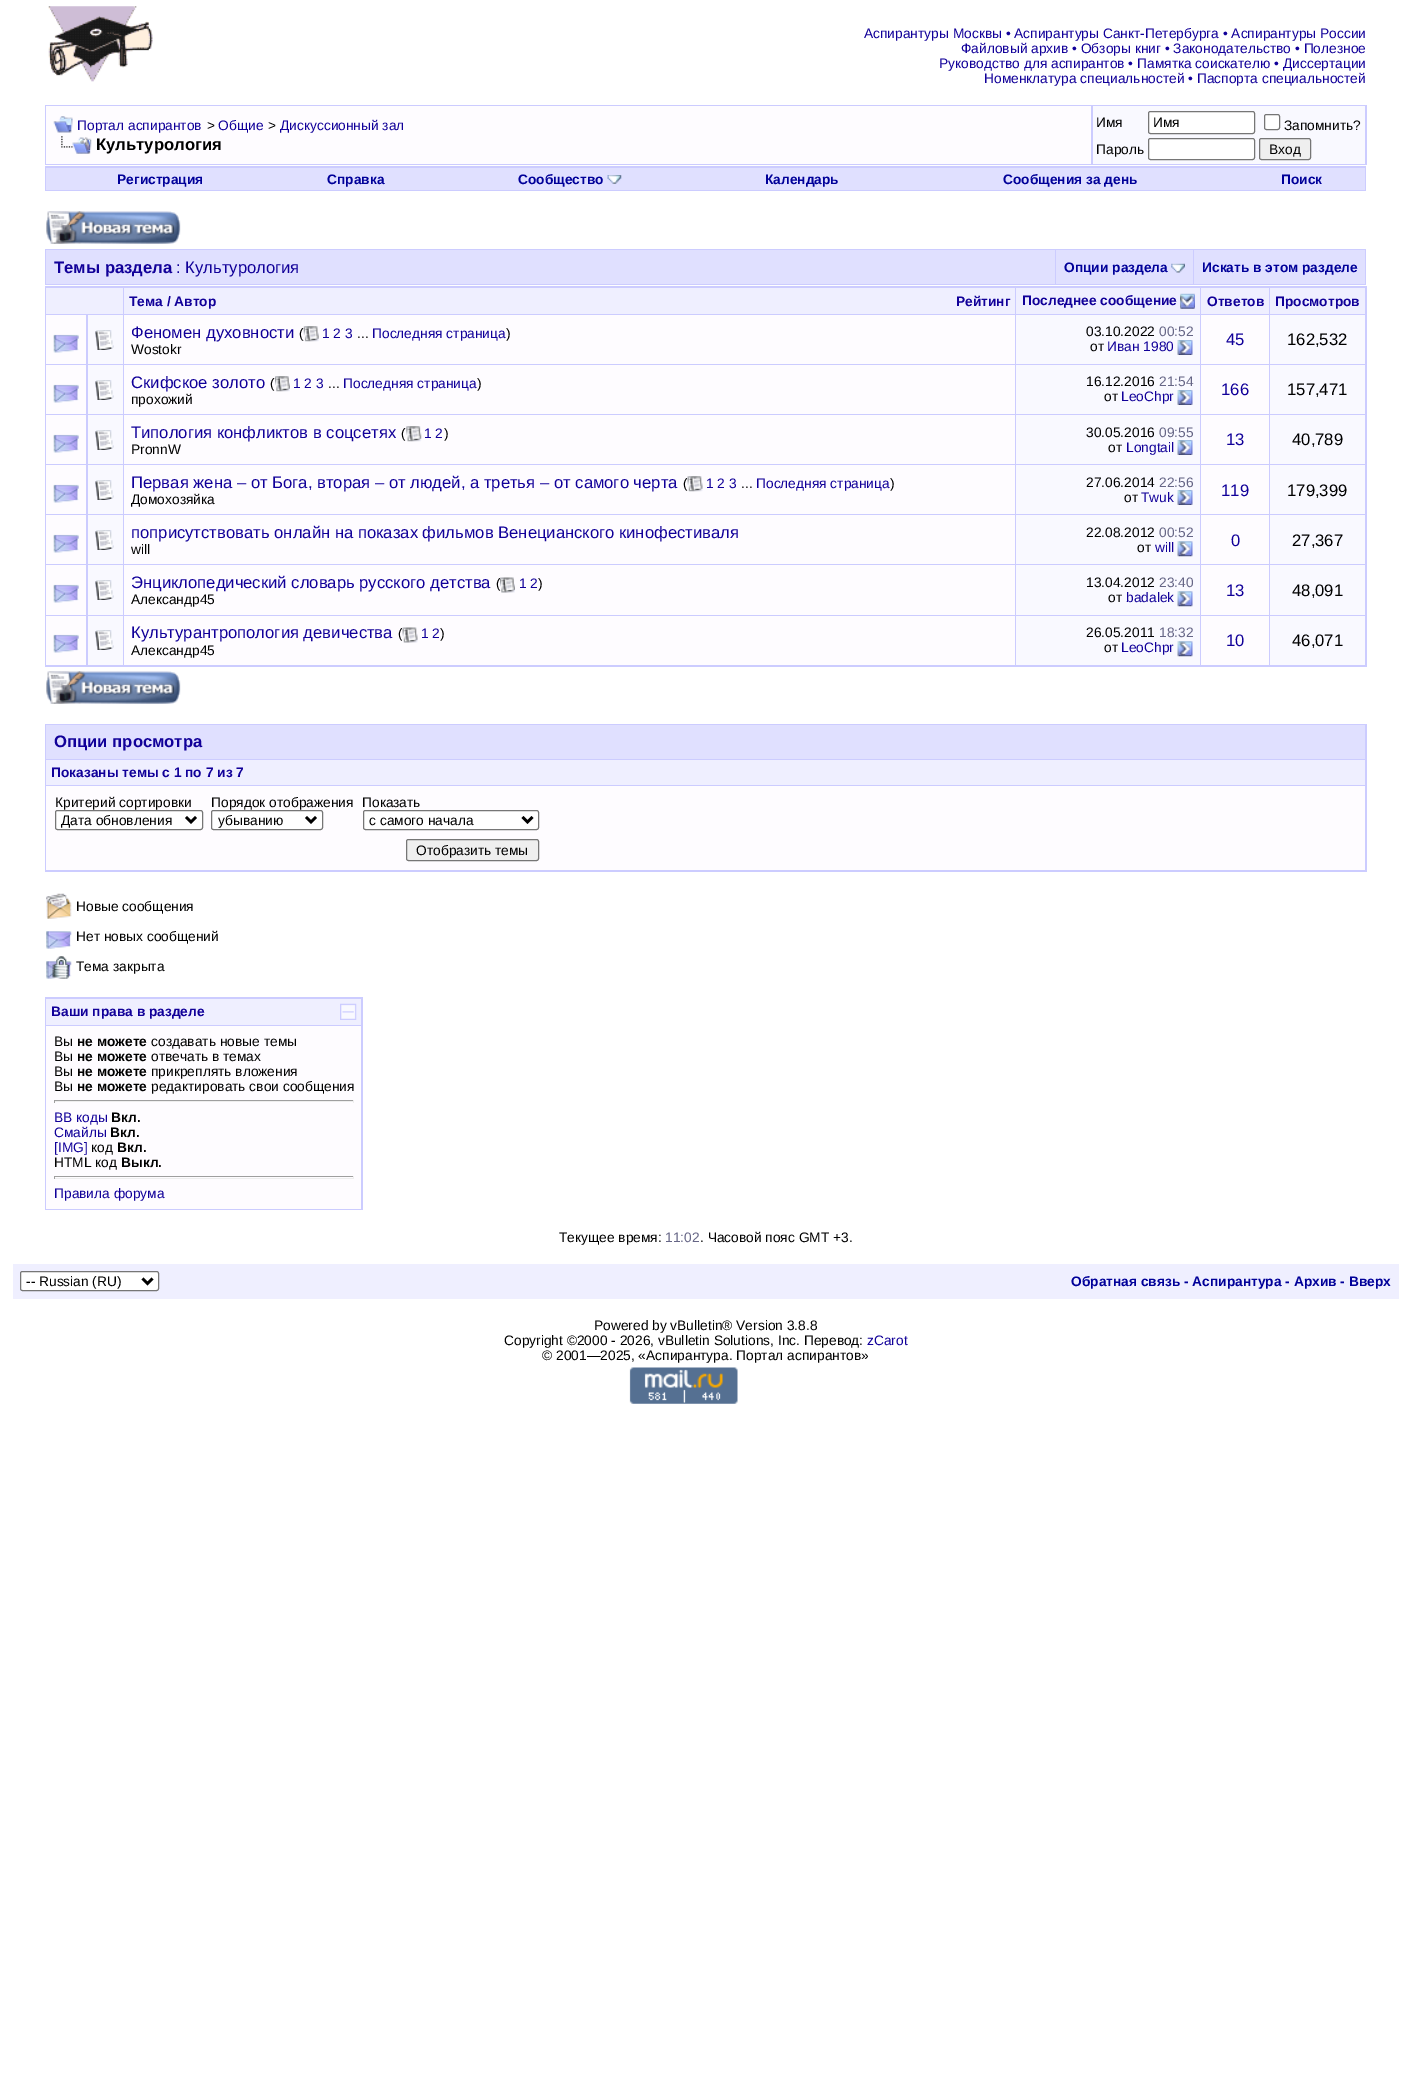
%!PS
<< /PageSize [1411 2098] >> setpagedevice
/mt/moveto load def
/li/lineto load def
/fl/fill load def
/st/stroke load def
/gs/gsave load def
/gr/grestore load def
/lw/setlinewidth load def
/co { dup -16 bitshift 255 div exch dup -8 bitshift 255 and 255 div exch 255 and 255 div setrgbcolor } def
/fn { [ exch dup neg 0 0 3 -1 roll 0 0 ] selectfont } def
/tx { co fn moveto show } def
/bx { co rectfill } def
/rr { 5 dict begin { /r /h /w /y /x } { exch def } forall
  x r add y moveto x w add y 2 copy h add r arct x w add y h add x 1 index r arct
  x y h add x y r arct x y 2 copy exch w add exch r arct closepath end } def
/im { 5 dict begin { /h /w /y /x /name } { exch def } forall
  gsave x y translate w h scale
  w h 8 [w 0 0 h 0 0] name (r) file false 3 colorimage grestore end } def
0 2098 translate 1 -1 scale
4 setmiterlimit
0 0 1411 2098 16#FFFFFF bx
(media/1.raw) 48 6 105 76 im
45 105 1322 60 16#CCCCFF bx
46 106 1045 58 16#FEFCFF bx
(media/2.raw) 53 116 20 17 im
(media/3.raw) 61 136 31 18 im
1093 106 272 58 16#F9F9FF bx
16#FFFFFF co
1148.5 111.5 106 22 2 rr gs fl gr
16#767676 co
st
16#FFFFFF co
1264.5 114.5 15 15 2 rr gs fl gr
16#767676 co
st
16#FFFFFF co
1148.5 138.5 106 21 2 rr gs fl gr
16#767676 co
st
16#EFEFEF co
1259.5 138.5 51 21 2 rr gs fl gr
16#767676 co
st
45 166 1321 25 16#CCCCFF bx
46 168 1319 22 16#E0E0FF bx
(media/4.raw) 607 175 15 9 im
(media/5.raw) 46 211 135 33 im
45 249 1321 36 16#CCCCFF bx
46 250 1009 34 16#E0E0FF bx
1056 250 137 34 16#E0E0FF bx
(media/6.raw) 1171 263 14 10 im
1194 250 171 34 16#E0E0FF bx
45 286 1322 381 16#CCCCFF bx
46 288 77 26 16#EFEFFF bx
124 288 891 26 16#EFEFFF bx
1016 288 184 26 16#EFEFFF bx
(media/7.raw) 1180 293 15 16 im
1201 288 68 26 16#EFEFFF bx
1270 288 95 26 16#EFEFFF bx
46 315 40 49 16#FEFCFF bx
(media/8.raw) 53 334 26 19 im
88 315 35 49 16#F9F9FF bx
(media/9.raw) 95 330 19 20 im
124 315 891 49 16#FEFCFF bx
1016 315 184 49 16#F9F9FF bx
(media/11.raw) 1177 340 16 15 im
1201 315 68 49 16#FEFCFF bx
1270 315 95 49 16#F9F9FF bx
46 365 40 49 16#FEFCFF bx
(media/8.raw) 53 384 26 19 im
88 365 35 49 16#F9F9FF bx
(media/9.raw) 95 380 19 20 im
124 365 891 49 16#FEFCFF bx
(media/12.raw) 275 376 15 16 im
1016 365 184 49 16#F9F9FF bx
(media/11.raw) 1177 390 16 15 im
1201 365 68 49 16#FEFCFF bx
1270 365 95 49 16#F9F9FF bx
46 415 40 49 16#FEFCFF bx
(media/8.raw) 53 434 26 19 im
88 415 35 49 16#F9F9FF bx
(media/9.raw) 95 430 19 20 im
124 415 891 49 16#FEFCFF bx
(media/13.raw) 406 426 16 16 im
1016 415 184 49 16#F9F9FF bx
(media/11.raw) 1177 440 16 15 im
1201 415 68 49 16#FEFCFF bx
1270 415 95 49 16#F9F9FF bx
46 465 40 49 16#FEFCFF bx
(media/8.raw) 53 484 26 19 im
88 465 35 49 16#F9F9FF bx
(media/9.raw) 95 480 19 20 im
124 465 891 49 16#FEFCFF bx
1016 465 184 49 16#F9F9FF bx
(media/11.raw) 1177 490 16 15 im
1201 465 68 49 16#FEFCFF bx
1270 465 95 49 16#F9F9FF bx
46 515 40 49 16#FEFCFF bx
(media/8.raw) 53 534 26 19 im
88 515 35 49 16#F9F9FF bx
(media/9.raw) 95 530 19 20 im
124 515 891 49 16#FEFCFF bx
1016 515 184 49 16#F9F9FF bx
(media/15.raw) 1177 541 16 16 im
1201 515 68 49 16#FEFCFF bx
1270 515 95 49 16#F9F9FF bx
46 565 40 50 16#FEFCFF bx
(media/16.raw) 53 584 26 19 im
88 565 35 50 16#F9F9FF bx
(media/17.raw) 95 580 19 20 im
124 565 891 50 16#FEFCFF bx
1016 565 184 50 16#F9F9FF bx
(media/15.raw) 1177 591 16 16 im
1201 565 68 50 16#FEFCFF bx
1270 565 95 50 16#F9F9FF bx
46 616 40 49 16#FEFCFF bx
(media/8.raw) 53 634 26 19 im
88 616 35 49 16#F9F9FF bx
(media/9.raw) 95 630 19 20 im
124 616 891 49 16#FEFCFF bx
1016 616 184 49 16#F9F9FF bx
(media/15.raw) 1177 641 16 16 im
1201 616 68 49 16#FEFCFF bx
1270 616 95 49 16#F9F9FF bx
(media/5.raw) 46 671 135 33 im
45 724 1322 148 16#CCCCFF bx
46 725 1319 34 16#E0E0FF bx
46 760 1319 25 16#EFEFFF bx
46 786 1319 84 16#FEFCFF bx
16#FFFFFF co
55.5 810.5 147 19 2 rr gs fl gr
16#767676 co
st
16#000000 co
2.5 lw
186 817 mt 191 822 li 196 817 li st
16#FFFFFF co
211.5 810.5 111 19 2 rr gs fl gr
16#767676 co
1 lw
st
16#000000 co
2.5 lw
306 817 mt 311 822 li 316 817 li st
16#FFFFFF co
363.5 810.5 175 19 2 rr gs fl gr
16#767676 co
1 lw
st
16#000000 co
2.5 lw
522.5 817 mt 527.5 822 li 532.5 817 li st
16#EFEFEF co
406.5 839.5 132 21 2 rr gs fl gr
16#767676 co
1 lw
st
(media/20.raw) 46 893 26 26 im
(media/21.raw) 46 931 26 18 im
(media/22.raw) 46 956 26 23 im
45 997 318 213 16#CCCCFF bx
46 999 315 26 16#EFEFFF bx
(media/23.raw) 340 1003 17 17 im
46 1026 315 183 16#FEFCFF bx
54 1100 300 1 16#9F9F9F bx
353 1100 1 3 16#EEEEEE bx
54 1101 300 1 16#EEEEEE bx
54 1100 1 3 16#9F9F9F bx
54 1176 300 1 16#9F9F9F bx
353 1176 1 3 16#EEEEEE bx
54 1178 300 1 16#EEEEEE bx
54 1176 1 3 16#9F9F9F bx
13 1264 1386 35 16#EFEFFF bx
16#FFFFFF co
20.5 1271.5 138 19 2 rr gs fl gr
16#767676 co
st
16#000000 co
2.5 lw
142.5 1278.5 mt 147.5 1283.5 li 152.5 1278.5 li st
(media/24.raw) 629 1367 109 37 im
(Аспирантуры Москвы • Аспирантуры Санкт-Петербурга • Аспирантуры России) 864 38 /LiberationSans-Regular 13.75 16#110099 tx
(Файловый архив • Обзоры книг • Законодательство • Полезное) 961 53 /LiberationSans-Regular 13.75 16#110099 tx
(Руководство для аспирантов • Памятка соискателю • Диссертации) 939 68 /LiberationSans-Regular 13.75 16#110099 tx
(Номенклатура специальностей • Паспорта специальностей) 984 83 /LiberationSans-Regular 13.75 16#110099 tx
(Портал аспирантов) 77 130 /LiberationSans-Regular 13.75 16#110099 tx
(>) 207 130 /LiberationSans-Regular 13.75 16#000000 tx
(Общие) 218 130 /LiberationSans-Regular 13.75 16#110099 tx
(>) 268 130 /LiberationSans-Regular 13.75 16#000000 tx
(Дискуссионный зал) 280 130 /LiberationSans-Regular 13.75 16#110099 tx
(Культурология) 96 150 /LiberationSans-Bold 16.65 16#000000 tx
(Имя) 1096 127 /LiberationSans-Regular 13.75 16#000000 tx
(Имя) 1153 127 /LiberationSans-Regular 13.75 16#000000 tx
(Запомнить?) 1284 130 /LiberationSans-Regular 13.75 16#000000 tx
(Пароль) 1096 154 /LiberationSans-Regular 13.75 16#000000 tx
(Вход) 1269 154 /LiberationSans-Regular 13.75 16#000000 tx
(Регистрация) 117 184 /LiberationSans-Bold 13.75 16#000099 tx
(Справка) 327 184 /LiberationSans-Bold 13.75 16#000099 tx
(Сообщество) 518 184 /LiberationSans-Bold 13.75 16#000099 tx
(Календарь) 765 184 /LiberationSans-Bold 13.75 16#000099 tx
(Сообщения за день) 1003 184 /LiberationSans-Bold 13.75 16#000099 tx
(Поиск) 1281 184 /LiberationSans-Bold 13.75 16#000099 tx
(Темы раздела) 54 273 /LiberationSans-Bold 16.65 16#110099 tx
(: Культурология) 176 273 /LiberationSans-Regular 16.65 16#110099 tx
(Опции раздела) 1064 272 /LiberationSans-Bold 13.75 16#000099 tx
(Искать в этом разделе) 1202 272 /LiberationSans-Bold 13.75 16#000099 tx
(Тема / Автор) 129 306 /LiberationSans-Bold 13.75 16#110099 tx
(Рейтинг) 956 306 /LiberationSans-Bold 13.75 16#110099 tx
(Последнее сообщение) 1022 305 /LiberationSans-Bold 13.75 16#110099 tx
(Ответов) 1207 306 /LiberationSans-Bold 13.75 16#110099 tx
(Просмотров) 1275 306 /LiberationSans-Bold 13.75 16#110099 tx
(Феномен духовности) 131 338 /LiberationSans-Regular 16.65 16#110099 tx
(\() 299 338 /LiberationSans-Regular 13.75 16#000000 tx
(media/10.raw) 303 326 16 16 im
(1 2 3) 322 338 /LiberationSans-Regular 13.75 16#110099 tx
(...) 357 338 /LiberationSans-Regular 13.75 16#000000 tx
(Последняя страница) 372 338 /LiberationSans-Regular 13.75 16#110099 tx
(\)) 506 338 /LiberationSans-Regular 13.75 16#000000 tx
(Wostokr) 131 354 /LiberationSans-Regular 13.75 16#000000 tx
(03.10.2022) 1086 336 /LiberationSans-Regular 13.75 16#000000 tx
(00:52) 1159 336 /LiberationSans-Regular 13.75 16#666686 tx
(от) 1090 351 /LiberationSans-Regular 13.75 16#000000 tx
(Иван 1980) 1107 351 /LiberationSans-Regular 13.75 16#110099 tx
(45) 1226 345 /LiberationSans-Regular 16.65 16#110099 tx
(162,532) 1287 345 /LiberationSans-Regular 16.65 16#000000 tx
(Скифское золото) 131 388 /LiberationSans-Regular 16.65 16#110099 tx
(\() 270 388 /LiberationSans-Regular 13.75 16#000000 tx
(1 2 3) 293 388 /LiberationSans-Regular 13.75 16#110099 tx
(...) 328 388 /LiberationSans-Regular 13.75 16#000000 tx
(Последняя страница) 343 388 /LiberationSans-Regular 13.75 16#110099 tx
(\)) 477 388 /LiberationSans-Regular 13.75 16#000000 tx
(прохожий) 131 404 /LiberationSans-Regular 13.75 16#000000 tx
(16.12.2016) 1086 386 /LiberationSans-Regular 13.75 16#000000 tx
(21:54) 1159 386 /LiberationSans-Regular 13.75 16#666686 tx
(от) 1104 401 /LiberationSans-Regular 13.75 16#000000 tx
(LeoChpr) 1121 401 /LiberationSans-Regular 13.75 16#110099 tx
(166) 1221 395 /LiberationSans-Regular 16.65 16#110099 tx
(157,471) 1287 395 /LiberationSans-Regular 16.65 16#000000 tx
(Типология конфликтов в соцсетях) 131 438 /LiberationSans-Regular 16.65 16#110099 tx
(\() 401 438 /LiberationSans-Regular 13.75 16#000000 tx
(1 2) 424 438 /LiberationSans-Regular 13.75 16#110099 tx
(\)) 444 438 /LiberationSans-Regular 13.75 16#000000 tx
(PronnW) 131 454 /LiberationSans-Regular 13.75 16#000000 tx
(30.05.2016) 1086 437 /LiberationSans-Regular 13.75 16#000000 tx
(09:55) 1159 437 /LiberationSans-Regular 13.75 16#666686 tx
(от) 1108 452 /LiberationSans-Regular 13.75 16#000000 tx
(Longtail) 1126 452 /LiberationSans-Regular 13.75 16#110099 tx
(13) 1226 445 /LiberationSans-Regular 16.65 16#110099 tx
(40,789) 1292 445 /LiberationSans-Regular 16.65 16#000000 tx
(Первая жена – от Бога, вторая – от людей, а третья – от самого черта) 131 488 /LiberationSans-Regular 16.65 16#110099 tx
(\() 683 488 /LiberationSans-Regular 13.75 16#000000 tx
(media/14.raw) 687 476 16 16 im
(1 2 3) 706 488 /LiberationSans-Regular 13.75 16#110099 tx
(...) 741 488 /LiberationSans-Regular 13.75 16#000000 tx
(Последняя страница) 756 488 /LiberationSans-Regular 13.75 16#110099 tx
(\)) 890 488 /LiberationSans-Regular 13.75 16#000000 tx
(Домохозяйка) 131 504 /LiberationSans-Regular 13.75 16#000000 tx
(27.06.2014) 1086 487 /LiberationSans-Regular 13.75 16#000000 tx
(22:56) 1159 487 /LiberationSans-Regular 13.75 16#666686 tx
(от) 1124 502 /LiberationSans-Regular 13.75 16#000000 tx
(Twuk) 1141 502 /LiberationSans-Regular 13.75 16#110099 tx
(119) 1221 496 /LiberationSans-Regular 16.65 16#110099 tx
(179,399) 1287 496 /LiberationSans-Regular 16.65 16#000000 tx
(поприсутствовать онлайн на показах фильмов Венецианского кинофестиваля) 131 538 /LiberationSans-Regular 16.65 16#110099 tx
(will) 131 554 /LiberationSans-Regular 13.75 16#000000 tx
(22.08.2012) 1086 537 /LiberationSans-Regular 13.75 16#000000 tx
(00:52) 1159 537 /LiberationSans-Regular 13.75 16#666686 tx
(от) 1137 552 /LiberationSans-Regular 13.75 16#000000 tx
(will) 1155 552 /LiberationSans-Regular 13.75 16#110099 tx
(0) 1231 546 /LiberationSans-Regular 16.65 16#110099 tx
(27,367) 1292 546 /LiberationSans-Regular 16.65 16#000000 tx
(Энциклопедический словарь русского детства) 131 588 /LiberationSans-Regular 16.65 16#110099 tx
(\() 496 588 /LiberationSans-Regular 13.75 16#000000 tx
(media/18.raw) 500 577 15 16 im
(1 2) 519 588 /LiberationSans-Regular 13.75 16#110099 tx
(\)) 538 588 /LiberationSans-Regular 13.75 16#000000 tx
(Александр45) 131 604 /LiberationSans-Regular 13.75 16#000000 tx
(13.04.2012) 1086 587 /LiberationSans-Regular 13.75 16#000000 tx
(23:40) 1159 587 /LiberationSans-Regular 13.75 16#666686 tx
(от) 1108 602 /LiberationSans-Regular 13.75 16#000000 tx
(badalek) 1126 602 /LiberationSans-Regular 13.75 16#110099 tx
(13) 1226 596 /LiberationSans-Regular 16.65 16#110099 tx
(48,091) 1292 596 /LiberationSans-Regular 16.65 16#000000 tx
(Культурантропология девичества) 131 638 /LiberationSans-Regular 16.65 16#110099 tx
(\() 398 638 /LiberationSans-Regular 13.75 16#000000 tx
(media/19.raw) 402 627 16 16 im
(1 2) 421 638 /LiberationSans-Regular 13.75 16#110099 tx
(\)) 440 638 /LiberationSans-Regular 13.75 16#000000 tx
(Александр45) 131 655 /LiberationSans-Regular 13.75 16#000000 tx
(26.05.2011) 1086 637 /LiberationSans-Regular 13.75 16#000000 tx
(18:32) 1159 637 /LiberationSans-Regular 13.75 16#666686 tx
(от) 1104 652 /LiberationSans-Regular 13.75 16#000000 tx
(LeoChpr) 1121 652 /LiberationSans-Regular 13.75 16#110099 tx
(10) 1226 646 /LiberationSans-Regular 16.65 16#110099 tx
(46,071) 1292 646 /LiberationSans-Regular 16.65 16#000000 tx
(Опции просмотра) 54 747 /LiberationSans-Bold 16.65 16#110099 tx
(Показаны темы с 1 по 7 из 7) 51 777 /LiberationSans-Bold 13.75 16#110099 tx
(Критерий сортировки) 55 807 /LiberationSans-Regular 13.75 16#000000 tx
(Дата обновления) 61 825 /LiberationSans-Regular 13.75 16#000000 tx
(Порядок отображения) 211 807 /LiberationSans-Regular 13.75 16#000000 tx
(убыванию) 218 825 /LiberationSans-Regular 13.75 16#000000 tx
(Показать) 362 807 /LiberationSans-Regular 13.75 16#000000 tx
(с самого начала) 369 825 /LiberationSans-Regular 13.75 16#000000 tx
(Отобразить темы) 416 855 /LiberationSans-Regular 13.75 16#000000 tx
(Новые сообщения) 76 911 /LiberationSans-Regular 13.75 16#000000 tx
(Нет новых сообщений) 76 941 /LiberationSans-Regular 13.75 16#000000 tx
(Тема закрыта) 76 971 /LiberationSans-Regular 13.75 16#000000 tx
(Ваши права в разделе) 51 1016 /LiberationSans-Bold 13.75 16#110099 tx
(Вы) 54 1046 /LiberationSans-Regular 13.75 16#000000 tx
(не можете) 77 1046 /LiberationSans-Bold 13.75 16#000000 tx
(создавать новые темы) 151 1046 /LiberationSans-Regular 13.75 16#000000 tx
(Вы) 54 1061 /LiberationSans-Regular 13.75 16#000000 tx
(не можете) 77 1061 /LiberationSans-Bold 13.75 16#000000 tx
(отвечать в темах) 151 1061 /LiberationSans-Regular 13.75 16#000000 tx
(Вы) 54 1076 /LiberationSans-Regular 13.75 16#000000 tx
(не можете) 77 1076 /LiberationSans-Bold 13.75 16#000000 tx
(прикреплять вложения) 151 1076 /LiberationSans-Regular 13.75 16#000000 tx
(Вы) 54 1091 /LiberationSans-Regular 13.75 16#000000 tx
(не можете) 77 1091 /LiberationSans-Bold 13.75 16#000000 tx
(редактировать свои сообщения) 151 1091 /LiberationSans-Regular 13.75 16#000000 tx
(BB коды) 54 1122 /LiberationSans-Regular 13.75 16#110099 tx
(Вкл.) 111 1122 /LiberationSans-Bold 13.75 16#000000 tx
(Смайлы) 54 1137 /LiberationSans-Regular 13.75 16#110099 tx
(Вкл.) 110 1137 /LiberationSans-Bold 13.75 16#000000 tx
([IMG]) 54 1152 /LiberationSans-Regular 13.75 16#110099 tx
(код) 91 1152 /LiberationSans-Regular 13.75 16#000000 tx
(Вкл.) 117 1152 /LiberationSans-Bold 13.75 16#000000 tx
(HTML код) 54 1167 /LiberationSans-Regular 13.75 16#000000 tx
(Выкл.) 121 1167 /LiberationSans-Bold 13.75 16#000000 tx
(Правила форума) 54 1198 /LiberationSans-Regular 13.75 16#110099 tx
(Текущее время:) 559 1242 /LiberationSans-Regular 13.75 16#000000 tx
(11:02) 665 1242 /LiberationSans-Regular 13.75 16#666686 tx
(. Часовой пояс GMT +3.) 700 1242 /LiberationSans-Regular 13.75 16#000000 tx
(-- Russian \(RU\)) 26 1286 /LiberationSans-Regular 13.75 16#000000 tx
(Обратная связь - Аспирантура - Архив - Вверх) 1071 1286 /LiberationSans-Bold 13.75 16#000099 tx
(Powered by vBulletin® Version 3.8.8) 594 1330 /LiberationSans-Regular 13.75 16#000000 tx
(Copyright ©2000 - 2026, vBulletin Solutions, Inc. Перевод:) 504 1345 /LiberationSans-Regular 13.75 16#000000 tx
(zCarot) 867 1345 /LiberationSans-Regular 13.75 16#110099 tx
(© 2001—2025, «Аспирантура. Портал аспирантов») 542 1360 /LiberationSans-Regular 13.75 16#000000 tx
showpage
